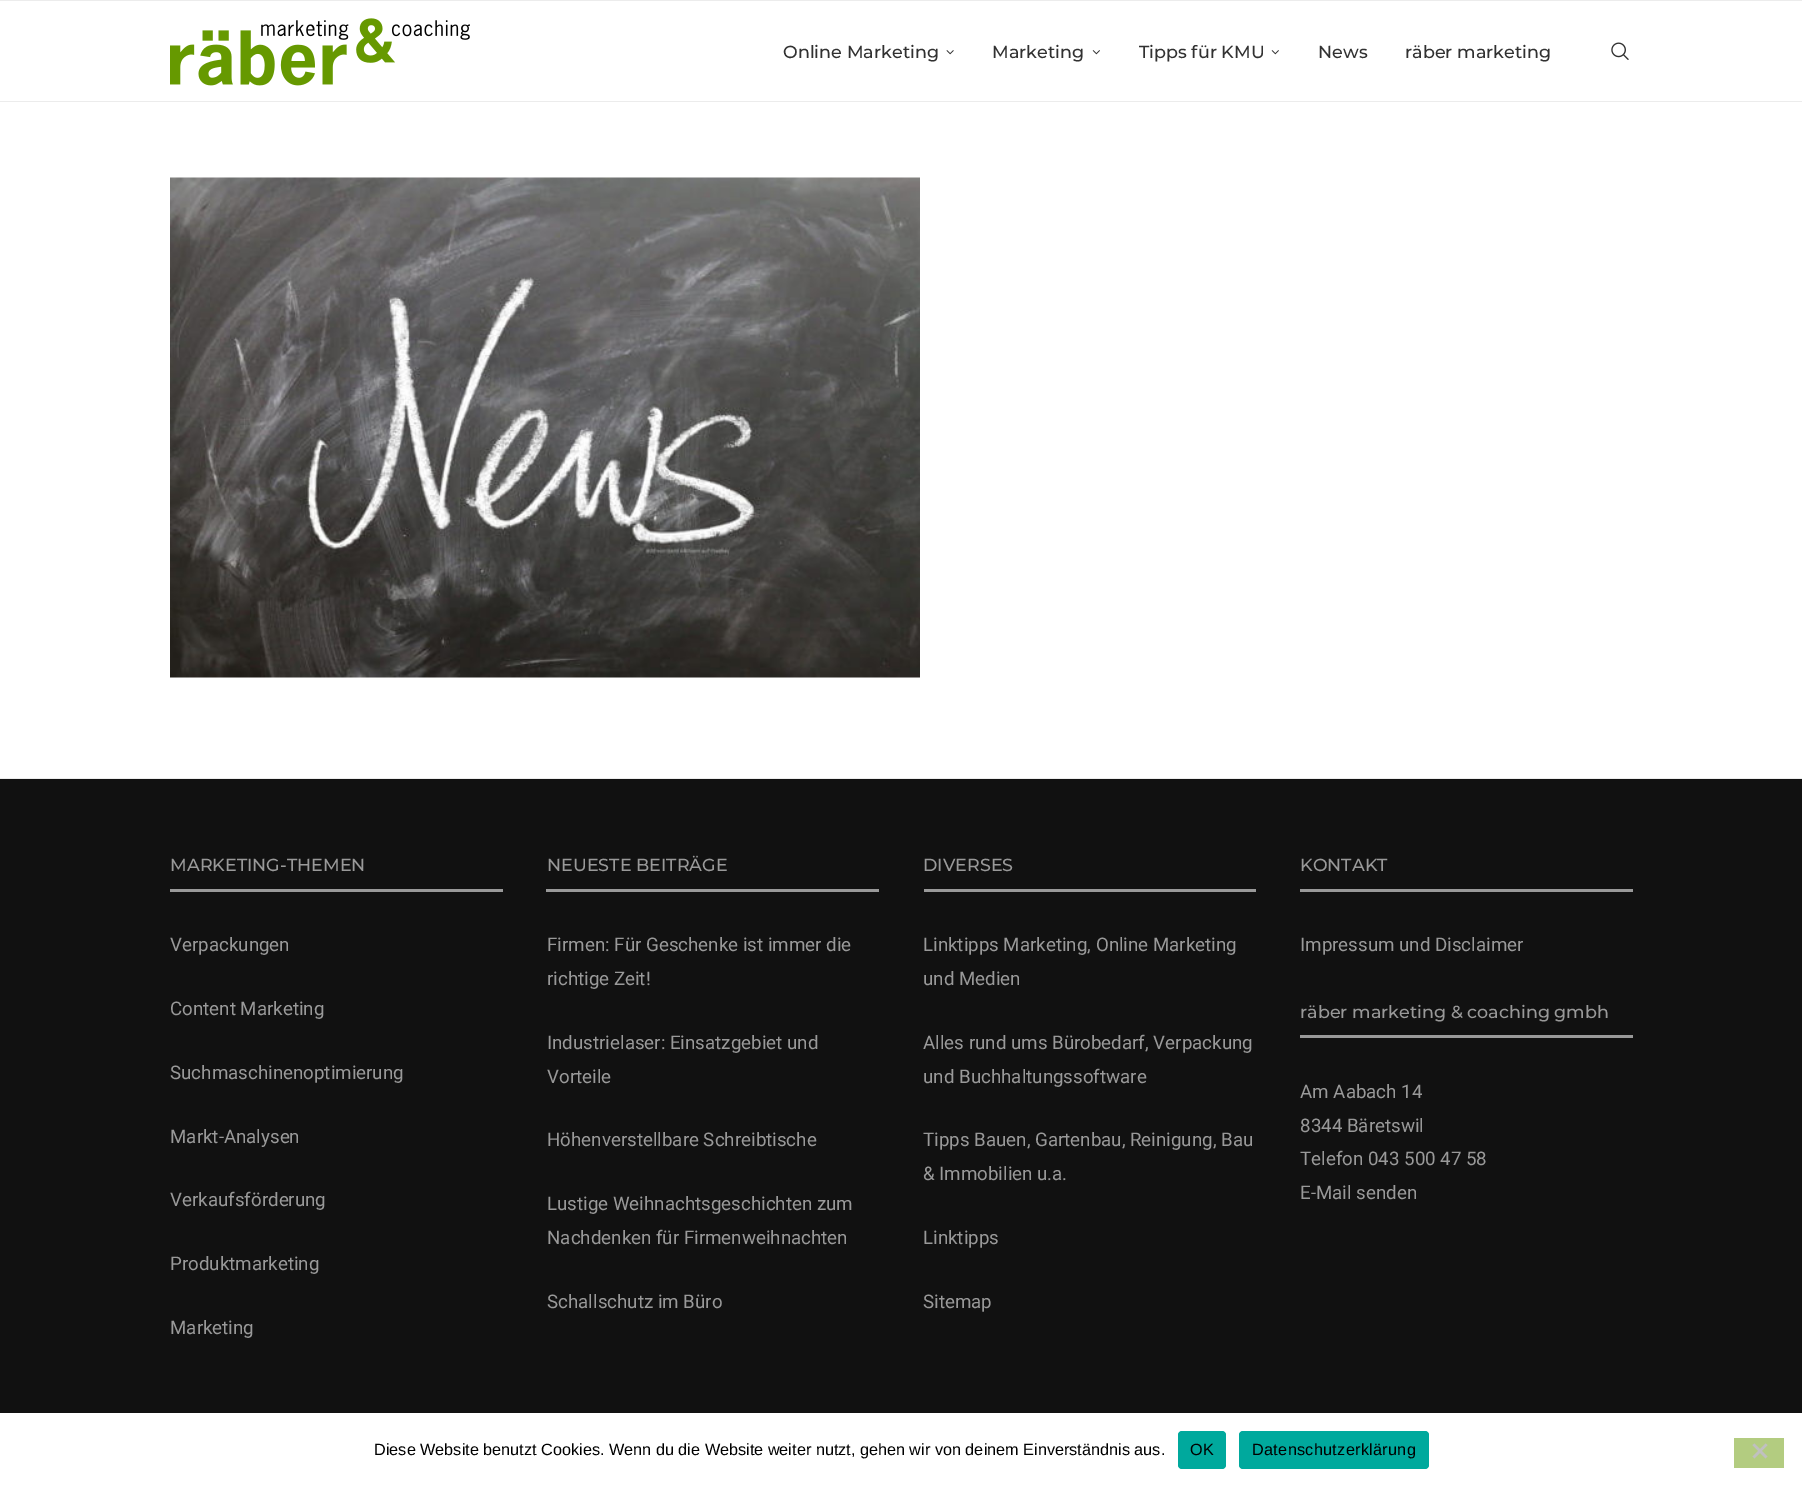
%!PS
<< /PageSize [1802 1488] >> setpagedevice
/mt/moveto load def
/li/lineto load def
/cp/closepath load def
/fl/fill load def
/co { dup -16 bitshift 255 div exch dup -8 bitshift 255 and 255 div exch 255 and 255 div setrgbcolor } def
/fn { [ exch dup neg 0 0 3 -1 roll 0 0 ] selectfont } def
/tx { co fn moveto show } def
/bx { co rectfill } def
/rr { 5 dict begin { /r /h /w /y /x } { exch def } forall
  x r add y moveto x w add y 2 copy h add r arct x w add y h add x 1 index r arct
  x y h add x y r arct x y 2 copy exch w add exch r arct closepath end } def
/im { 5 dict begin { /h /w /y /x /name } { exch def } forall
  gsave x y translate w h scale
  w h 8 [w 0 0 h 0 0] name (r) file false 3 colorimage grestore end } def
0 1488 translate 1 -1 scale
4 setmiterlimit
0 0 1802 1488 16#FFFFFF bx
0 0 1802 1 16#ECECEC bx
0 101 1802 1 16#ECECEC bx
(media/1.raw) 170 18 300 68 im
(media/2.raw) 946 50 8 5 im
(media/3.raw) 1092 50 8 5 im
(media/4.raw) 1271 50 8 5 im
(media/5.raw) 1611 42 18 18 im
(media/6.raw) 170 177 750 501 im
0 779 1802 634 16#111111 bx
0 778 1802 1 16#ECECEC bx
170 889 333 3 16#999999 bx
546 889 333 3 16#999999 bx
924 889 332 3 16#999999 bx
1300 889 333 3 16#999999 bx
1300 1035 333 3 16#999999 bx
16#00A99D co
1178 1431 48 38 4 rr fl
1239 1431 190 38 4 rr fl
1734 1438 50 30 16#B3CC80 bx
16#C0C0C0 co
1765.5 1443.5 mt 1767.5 1445 li 1754.5 1458.5 li 1752.5 1456.5 li cp fl
1752.5 1445 mt 1754.5 1443.5 li 1767.5 1456.5 li 1765.5 1458.5 li cp fl
(Online Marketing) 783 58 /Montserrat-Thin 17.5 16#313131 tx
(Marketing) 992 58 /Montserrat-Thin 17.5 16#313131 tx
(Tipps für KMU) 1139 58 /Montserrat-Thin 17.5 16#313131 tx
(News) 1318 58 /Montserrat-Thin 17.5 16#313131 tx
(räber marketing) 1405 58 /Montserrat-Thin 17.5 16#313131 tx
(MARKETING-THEMEN) 170 871 /Montserrat-Thin 17.5 16#999999 tx
(Verpackungen) 170 951 /Roboto-Regular 18.75 16#999999 tx
(Content Marketing) 170 1015 /Roboto-Regular 18.75 16#999999 tx
(Suchmaschinenoptimierung) 170 1079 /Roboto-Regular 18.75 16#999999 tx
(Markt-Analysen) 170 1143 /Roboto-Regular 18.75 16#999999 tx
(Verkaufsförderung) 170 1206 /Roboto-Regular 18.75 16#999999 tx
(Produktmarketing) 170 1270 /Roboto-Regular 18.75 16#999999 tx
(Marketing) 170 1334 /Roboto-Regular 18.75 16#999999 tx
(NEUESTE BEITRÄGE) 547 871 /Montserrat-Thin 17.5 16#999999 tx
(Firmen: Für Geschenke ist immer die) 547 951 /Roboto-Regular 18.75 16#999999 tx
(richtige Zeit!) 547 985 /Roboto-Regular 18.75 16#999999 tx
(Industrielaser: Einsatzgebiet und) 547 1049 /Roboto-Regular 18.75 16#999999 tx
(Vorteile) 547 1083 /Roboto-Regular 18.75 16#999999 tx
(Höhenverstellbare Schreibtische) 547 1146 /Roboto-Regular 18.75 16#999999 tx
(Lustige Weihnachtsgeschichten zum) 547 1210 /Roboto-Regular 18.75 16#999999 tx
(Nachdenken für Firmenweihnachten) 547 1244 /Roboto-Regular 18.75 16#999999 tx
(Schallschutz im Büro) 547 1308 /Roboto-Regular 18.75 16#999999 tx
(DIVERSES) 923 871 /Montserrat-Thin 17.5 16#999999 tx
(Linktipps Marketing, Online Marketing) 923 951 /Roboto-Regular 18.75 16#999999 tx
(und Medien) 923 985 /Roboto-Regular 18.75 16#999999 tx
(Alles rund ums Bürobedarf, Verpackung) 923 1049 /Roboto-Regular 18.75 16#999999 tx
(und Buchhaltungssoftware) 923 1083 /Roboto-Regular 18.75 16#999999 tx
(Tipps Bauen, Gartenbau, Reinigung, Bau) 923 1146 /Roboto-Regular 18.75 16#999999 tx
(& Immobilien u.a.) 923 1180 /Roboto-Regular 18.75 16#999999 tx
(Linktipps) 923 1244 /Roboto-Regular 18.75 16#999999 tx
(Sitemap) 923 1308 /Roboto-Regular 18.75 16#999999 tx
(KONTAKT) 1300 871 /Montserrat-Thin 17.5 16#999999 tx
(Impressum und Disclaimer) 1300 951 /Roboto-Regular 18.75 16#999999 tx
(räber marketing & coaching gmbh) 1300 1018 /Montserrat-Thin 17.5 16#999999 tx
(Am Aabach 14) 1300 1098 /Roboto-Regular 18.75 16#999999 tx
(8344 Bäretswil) 1300 1132 /Roboto-Regular 18.75 16#999999 tx
(Telefon 043 500 47 58) 1300 1165 /Roboto-Regular 18.75 16#999999 tx
(E-Mail senden) 1300 1199 /Roboto-Regular 18.75 16#999999 tx
(Diese Website benutzt Cookies. Wenn du die Website weiter nutzt, gehen wir von deinem Einverständnis aus.) 374 1455 /LiberationSans-Regular 16.25 16#000000 tx
1190 1455 mt .3 0 (OK) ashow
1252 1455 mt .3 0 (Datenschutzerklärung) ashow
showpage
